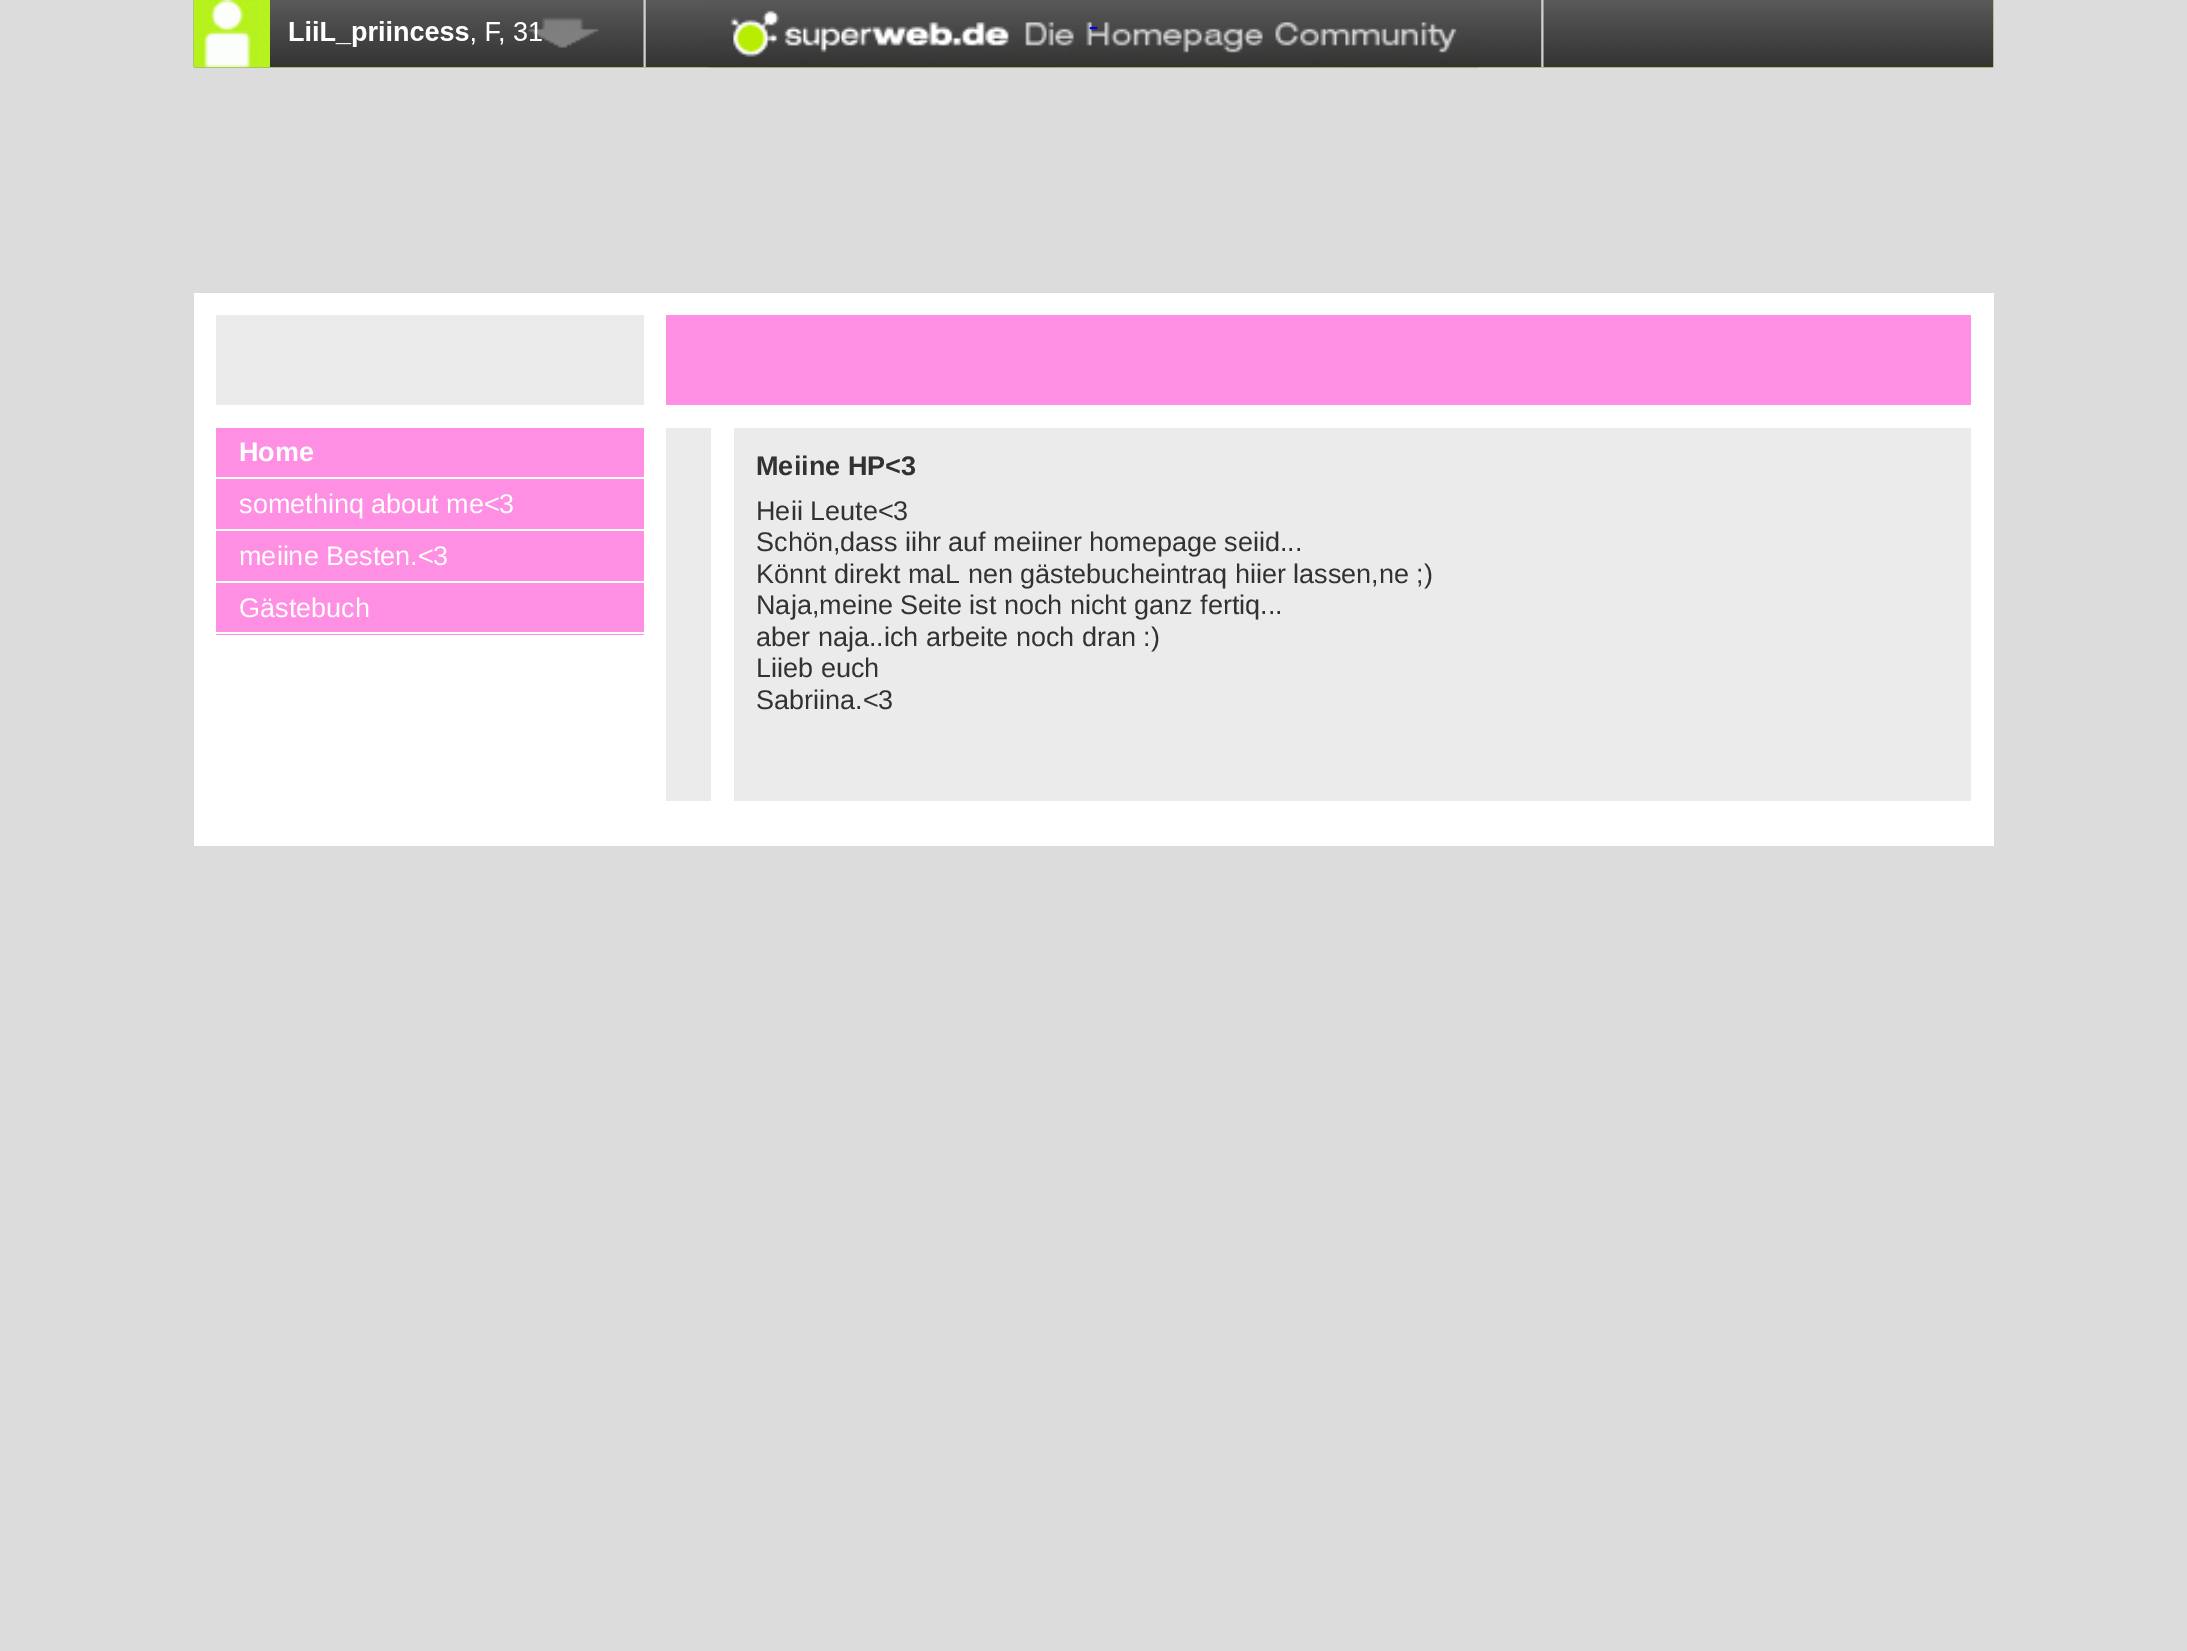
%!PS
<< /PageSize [2187 1651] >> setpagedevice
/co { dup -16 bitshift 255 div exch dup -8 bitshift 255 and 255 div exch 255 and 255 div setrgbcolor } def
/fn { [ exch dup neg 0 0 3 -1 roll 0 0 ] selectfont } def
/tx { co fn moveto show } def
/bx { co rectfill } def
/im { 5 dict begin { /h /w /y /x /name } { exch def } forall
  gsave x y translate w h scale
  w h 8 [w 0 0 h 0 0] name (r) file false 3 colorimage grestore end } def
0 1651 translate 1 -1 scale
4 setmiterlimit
0 0 2187 1651 16#DCDCDC bx
(media/1.raw) 193 0 1801 68 im
194 293 1800 553 16#FFFFFF bx
216 315 428 90 16#EBEBEB bx
666 315 1305 90 16#FF8FE3 bx
216 428 428 49 16#FF8FE3 bx
216 479 428 50 16#FF8FE3 bx
216 531 428 50 16#FF8FE3 bx
216 583 428 52 16#FF8FE3 bx
216 632 428 2 16#FFFFFF bx
666 428 45 373 16#EBEBEB bx
734 428 1237 373 16#EBEBEB bx
(Home) 239 461 /LiberationSans-Bold 27 16#FFFFFF tx
(somethinq about me<3) 239 513 /LiberationSans-Regular 27 16#FFFFFF tx
(meiine Besten.<3) 239 565 /LiberationSans-Regular 27 16#FFFFFF tx
(Gästebuch) 239 617 /LiberationSans-Regular 27 16#FFFFFF tx
(Meiine HP<3) 756 475 /LiberationSans-Bold 27 16#323232 tx
(Heii Leute<3) 756 520 /LiberationSans-Regular 27 16#323232 tx
(Schön,dass iihr auf meiiner homepage seiid...) 756 551 /LiberationSans-Regular 27 16#323232 tx
(Könnt direkt maL nen gästebucheintraq hiier lassen,ne ;\)) 756 583 /LiberationSans-Regular 27 16#323232 tx
(Naja,meine Seite ist noch nicht ganz fertiq...) 756 614 /LiberationSans-Regular 27 16#323232 tx
(aber naja..ich arbeite noch dran :\)) 756 646 /LiberationSans-Regular 27 16#323232 tx
(Liieb euch) 756 677 /LiberationSans-Regular 27 16#323232 tx
(Sabriina.<3) 756 709 /LiberationSans-Regular 27 16#323232 tx
showpage
